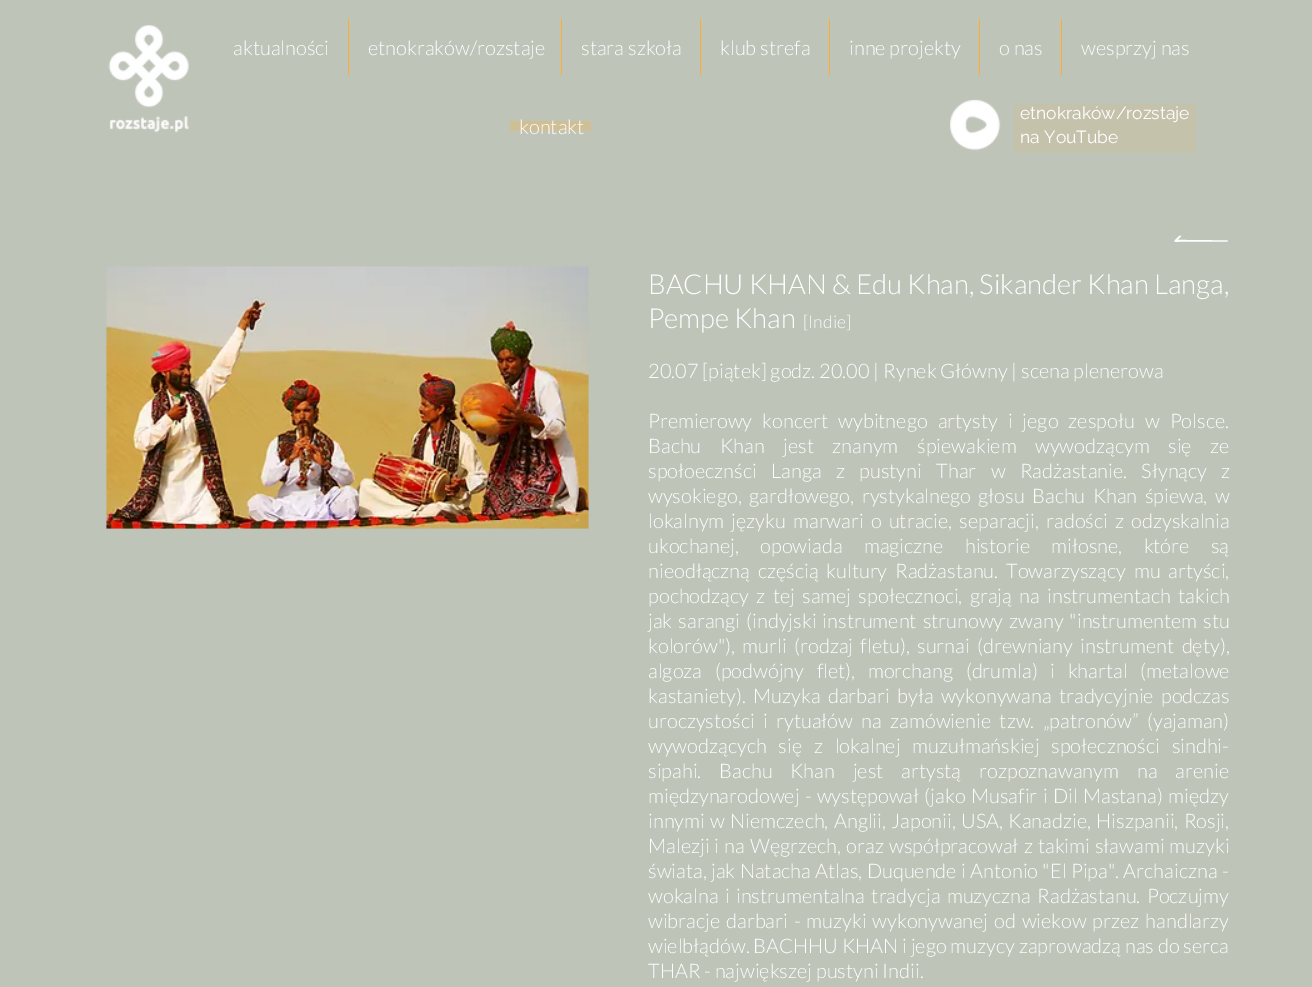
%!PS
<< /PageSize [1312 987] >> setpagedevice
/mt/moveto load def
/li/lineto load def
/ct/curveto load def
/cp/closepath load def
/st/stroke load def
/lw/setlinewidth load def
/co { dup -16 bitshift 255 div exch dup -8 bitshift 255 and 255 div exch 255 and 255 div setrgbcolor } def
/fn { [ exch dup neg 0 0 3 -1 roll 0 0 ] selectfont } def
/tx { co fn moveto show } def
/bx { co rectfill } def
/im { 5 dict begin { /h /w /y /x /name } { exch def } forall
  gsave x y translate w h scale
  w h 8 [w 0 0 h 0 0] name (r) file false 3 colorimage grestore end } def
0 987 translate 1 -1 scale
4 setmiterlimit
0 0 1312 987 16#BFC4B9 bx
(media/1.raw) 108 25 81 108 im
348 19 1 56 16#FFAC30 bx
561 19 1 56 16#FFAC30 bx
700 19 1 56 16#FFAC30 bx
829 19 1 56 16#FFAC30 bx
979 19 1 56 16#FFAC30 bx
1061 19 1 56 16#FFAC30 bx
(media/2.raw) 950 99 51 52 im
1014 104 182 49 16#C5C2AB bx
510 121 81 10 16#D0BE94 bx
16#FFFFFF co
1.2 lw
1179.5 236.5 mt 1173 243 1173 241 1184 241 ct 1227.5 241 li 1176 240.5 li 1180 236.5 li cp st
(media/3.raw) 106 266 483 263 im
(aktualności) 233 55 /Lato-Light 20 16#FFFFFF tx
(etnokraków/rozstaje) 368 55 /Lato-Light 20 16#FFFFFF tx
(stara szkoła) 581 55 /Lato-Light 20 16#FFFFFF tx
(klub strefa) 720 55 /Lato-Light 20 16#FFFFFF tx
(inne projekty) 849 55 /Lato-Light 20 16#FFFFFF tx
(o nas) 999 55 /Lato-Light 20 16#FFFFFF tx
(wesprzyj nas) 1081 55 /Lato-Light 20 16#FFFFFF tx
(kontakt) 519 134 /Lato-Light 20 16#FFFFFF tx
(etnokraków/rozstaje) 1020 119 /Raleway-Regular 17.5 16#FFFFFF tx
(na YouTube) 1020 143 /Raleway-Regular 17.5 16#FFFFFF tx
(BACHU KHAN & Edu Khan, Sikander Khan Langa,) 648 294 /Lato-Light 27.5 16#FFFFFF tx
(Pempe Khan) 648 328 /Lato-Light 27.5 16#FFFFFF tx
([Indie]) 803 328 /Lato-Light 17.5 16#FFFFFF tx
(20.07 [piątek] godz. 20.00 | Rynek Główny | scena plenerowa) 648 378 /Lato-Light 20 16#FFFFFF tx
648 428 mt 6.25 0 32 (Premierowy koncert wybitnego artysty i jego zespołu w Polsce.) widthshow
648 453 mt 14.75 0 32 (Bachu Khan jest znanym śpiewakiem wywodzącym się ze) widthshow
648 478 mt 10.5 0 32 (społoecznści Langa z pustyni Thar w Radżastanie. Słynący z) widthshow
648 503 mt 3.5 0 32 (wysokiego, gardłowego, rystykalnego głosu Bachu Khan śpiewa, w) widthshow
648 528 mt 3.25 0 32 (lokalnym języku marwari o utracie, separacji, radości z odzyskalnia) widthshow
648 553 mt 17.5 0 32 (ukochanej, opowiada magiczne historie miłosne, które są) widthshow
648 578 mt 4 0 32 (nieodłączną częścią kultury Radżastanu. Towarzyszący mu artyści,) widthshow
648 603 mt 3.5 0 32 (pochodzący z tej samej społecznoci, grają na instrumentach takich) widthshow
648 628 mt 2.25 0 32 (jak sarangi \(indyjski instrument strunowy zwany "instrumentem stu) widthshow
648 653 mt 3.5 0 32 (kolorów"\), murli \(rodzaj fletu\), surnai \(drewniany instrument dęty\),) widthshow
648 678 mt 8.75 0 32 (algoza \(podwójny flet\), morchang \(drumla\) i khartal \(metalowe) widthshow
648 703 mt 3.5 0 32 (kastaniety\). Muzyka darbari była wykonywana tradycyjnie podczas) widthshow
648 728 mt 4.5 0 32 (uroczystości i rytuałów na zamówienie tzw. „patronów” \(yajaman\)) widthshow
648 753 mt 8 0 32 (wywodzących się z lokalnej muzułmańskiej społeczności sindhi-) widthshow
648 778 mt 14 0 32 (sipahi. Bachu Khan jest artystą rozpoznawanym na arenie) widthshow
648 803 mt 1.5 0 32 (międzynarodowej - występował \(jako Musafir i Dil Mastana\) między) widthshow
648 828 mt 1.5 0 32 (innymi w Niemczech, Anglii, Japonii, USA, Kanadzie, Hiszpanii, Rosji,) widthshow
648 853 mt 1.25 0 32 (Malezji i na Węgrzech, oraz współpracował z takimi sławami muzyki) widthshow
648 878 mt .5 0 32 (świata, jak Natacha Atlas, Duquende i Antonio "El Pipa". Archaiczna -) widthshow
648 903 mt 2.5 0 32 (wokalna i instrumentalna tradycja muzyczna Radżastanu. Poczujmy) widthshow
648 928 mt 2 0 32 (wibracje darbari - muzyki wykonywanej od wiekow przez handlarzy) widthshow
(wielbłądów. BACHHU KHAN i jego muzycy zaprowadzą nas do serca) 648 953 /Lato-Light 20 16#FFFFFF tx
(THAR - największej pustyni Indii.) 648 978 /Lato-Light 20 16#FFFFFF tx
showpage
